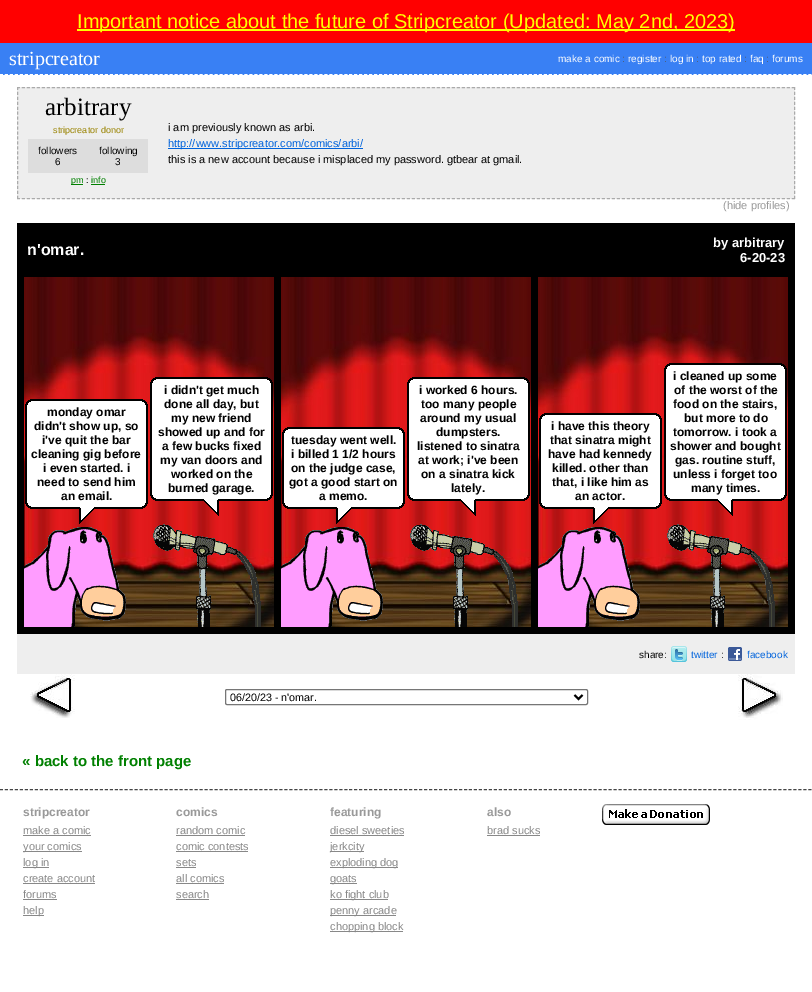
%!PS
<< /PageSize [812 992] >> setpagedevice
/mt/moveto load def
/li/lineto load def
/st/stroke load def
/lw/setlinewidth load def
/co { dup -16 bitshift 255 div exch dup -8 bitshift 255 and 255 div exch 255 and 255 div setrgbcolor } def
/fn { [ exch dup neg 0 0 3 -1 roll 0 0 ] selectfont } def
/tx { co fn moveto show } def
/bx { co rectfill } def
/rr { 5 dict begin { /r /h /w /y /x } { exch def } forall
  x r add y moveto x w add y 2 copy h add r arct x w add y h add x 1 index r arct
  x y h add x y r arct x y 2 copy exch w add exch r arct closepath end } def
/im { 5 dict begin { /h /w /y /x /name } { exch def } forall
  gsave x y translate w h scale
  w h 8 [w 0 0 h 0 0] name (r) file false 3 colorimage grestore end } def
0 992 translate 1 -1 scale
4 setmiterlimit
0 0 812 992 16#FFFFFF bx
0 0 812 43 16#FF0000 bx
77 29 658 2 16#FFFF00 bx
0 43 812 32 16#3980F4 bx
16#FFFFFF co
[3 1.99] 0 setdash
0 74.5 mt 812 74.5 li st
17 87 778 112 16#EEEEEE bx
16#AAAAAA co
[3 2] 0 setdash
17 87.5 mt 795 87.5 li st
[3 1.95] 0 setdash
794.5 87 mt 794.5 199 li st
[3 2] 0 setdash
17 198.5 mt 795 198.5 li st
[3 1.95] 0 setdash
17.5 87 mt 17.5 199 li st
28 139 120 34 16#DDDDDD bx
71 184 12 1 16#008000 bx
91 184 14 1 16#008000 bx
168 148 195 1 16#0063DC bx
17 223 778 411 16#000000 bx
(media/1.raw) 24 277 250 350 im
(media/2.raw) 25 399 6 6 im
(media/3.raw) 31 399 111 6 im
(media/4.raw) 142 399 6 6 im
(media/5.raw) 25 405 6 98 im
31 405 111 98 16#FFFFFF bx
(media/6.raw) 142 405 6 98 im
(media/7.raw) 25 503 6 6 im
(media/8.raw) 31 503 111 6 im
(media/9.raw) 142 503 6 6 im
(media/10.raw) 79 507 15 17 im
(media/11.raw) 24 527 102 100 im
(media/12.raw) 150 377 6 6 im
(media/3.raw) 156 377 111 6 im
(media/13.raw) 267 377 6 6 im
(media/14.raw) 150 383 6 112 im
156 383 111 112 16#FFFFFF bx
(media/15.raw) 267 383 6 112 im
(media/16.raw) 150 495 6 6 im
(media/8.raw) 156 495 111 6 im
(media/17.raw) 267 495 6 6 im
(media/18.raw) 204 499 15 17 im
(media/19.raw) 153 524 108 103 im
(media/1.raw) 281 277 250 350 im
(media/20.raw) 282 427 6 6 im
(media/3.raw) 288 427 111 6 im
(media/4.raw) 399 427 6 6 im
(media/21.raw) 282 433 6 70 im
288 433 111 70 16#FFFFFF bx
(media/22.raw) 399 433 6 70 im
(media/7.raw) 282 503 6 6 im
(media/8.raw) 288 503 111 6 im
(media/9.raw) 399 503 6 6 im
(media/10.raw) 336 507 15 17 im
(media/11.raw) 281 527 102 100 im
(media/12.raw) 407 377 6 6 im
(media/3.raw) 413 377 111 6 im
(media/13.raw) 524 377 6 6 im
(media/14.raw) 407 383 6 112 im
413 383 111 112 16#FFFFFF bx
(media/15.raw) 524 383 6 112 im
(media/16.raw) 407 495 6 6 im
(media/8.raw) 413 495 111 6 im
(media/17.raw) 524 495 6 6 im
(media/18.raw) 461 499 15 17 im
(media/19.raw) 410 524 108 103 im
(media/1.raw) 538 277 250 350 im
(media/23.raw) 539 413 6 6 im
(media/3.raw) 545 413 111 6 im
(media/4.raw) 656 413 6 6 im
(media/24.raw) 539 419 6 84 im
545 419 111 84 16#FFFFFF bx
(media/25.raw) 656 419 6 84 im
(media/7.raw) 539 503 6 6 im
(media/8.raw) 545 503 111 6 im
(media/9.raw) 656 503 6 6 im
(media/10.raw) 593 507 15 17 im
(media/11.raw) 538 527 102 100 im
(media/26.raw) 664 363 6 6 im
(media/3.raw) 670 363 111 6 im
(media/27.raw) 781 363 6 6 im
(media/28.raw) 664 369 6 126 im
670 369 111 126 16#FFFFFF bx
(media/29.raw) 781 369 6 126 im
(media/16.raw) 664 495 6 6 im
(media/8.raw) 670 495 111 6 im
(media/17.raw) 781 495 6 6 im
(media/18.raw) 718 499 15 17 im
(media/19.raw) 667 524 108 103 im
17 634 778 40 16#EEEEEE bx
(media/30.raw) 671 646 16 16 im
(media/31.raw) 728 647 14 14 im
(media/32.raw) 30 674 45 44 im
16#767676 co
[] 0 setdash
225.5 689.5 362 15 1.5 rr st
16#000000 co
2 lw
574.5 695 mt 578.5 699 li 582.5 695 li st
(media/33.raw) 738 674 45 46 im
16#444444 co
1 lw
[3 1.99] 0 setdash
0 789.5 mt 812 789.5 li st
23 835 68 1 16#888888 bx
23 851 59 1 16#888888 bx
23 867 26 1 16#888888 bx
23 883 72 1 16#888888 bx
23 899 34 1 16#888888 bx
23 915 21 1 16#888888 bx
176 835 69 1 16#888888 bx
176 851 72 1 16#888888 bx
176 867 20 1 16#888888 bx
176 883 48 1 16#888888 bx
176 899 33 1 16#888888 bx
330 835 74 1 16#888888 bx
330 851 34 1 16#888888 bx
330 867 68 1 16#888888 bx
330 883 27 1 16#888888 bx
330 899 58 1 16#888888 bx
330 915 66 1 16#888888 bx
330 931 73 1 16#888888 bx
487 835 53 1 16#888888 bx
(media/34.raw) 602 804 108 21 im
(Important notice about the future of Stripcreator \(Updated: May 2nd, 2023\)) 77 28 /LiberationSans-Regular 20 16#FFFF00 tx
(stripcreator) 9 65 /LiberationSerif-Regular 20 16#FFFFFF tx
(make a comic) 558 62 /LiberationSans-Regular 10 16#FFFFFF tx
(:) 622 62 /LiberationSans-Regular 10 16#555555 tx
(register) 628 62 /LiberationSans-Regular 10 16#FFFFFF tx
(:) 664 62 /LiberationSans-Regular 10 16#555555 tx
(log in) 670 62 /LiberationSans-Regular 10 16#FFFFFF tx
(:) 696 62 /LiberationSans-Regular 10 16#555555 tx
(top rated) 702 62 /LiberationSans-Regular 10 16#FFFFFF tx
(:) 744 62 /LiberationSans-Regular 10 16#555555 tx
(faq) 750 62 /LiberationSans-Regular 10 16#FFFFFF tx
(:) 766 62 /LiberationSans-Regular 10 16#555555 tx
(forums) 772 62 /LiberationSans-Regular 10 16#FFFFFF tx
(arbitrary) 45 115 /LiberationSerif-Regular 25 16#000000 tx
(stripcreator donor) 53 133 /LiberationSans-Regular 9 16#998300 tx
(followers) 38 154 /LiberationSans-Regular 10 16#000000 tx
(6) 55 165 /LiberationSans-Regular 10 16#000000 tx
(following) 99 154 /LiberationSans-Regular 10 16#000000 tx
(3) 115 165 /LiberationSans-Regular 10 16#000000 tx
(pm) 71 183 /LiberationSans-Regular 9 16#008000 tx
(:) 86 183 /LiberationSans-Regular 9 16#000000 tx
(info) 91 183 /LiberationSans-Regular 9 16#008000 tx
(i am previously known as arbi.) 168 131 /LiberationSans-Regular 11 16#000000 tx
(http://www.stripcreator.com/comics/arbi/) 168 147 /LiberationSans-Regular 11 16#0063DC tx
(this is a new account because i misplaced my password. gtbear at gmail.) 168 163 /LiberationSans-Regular 11 16#000000 tx
(\(hide profiles\)) 723 209 /LiberationSans-Regular 11 16#999999 tx
(n'omar.) 27 255 /LiberationSans-Bold 16 16#FFFFFF tx
(by arbitrary) 713 247 /LiberationSans-Bold 13 16#FFFFFF tx
(6-20-23) 740 262 /LiberationSans-Bold 13 16#FFFFFF tx
(monday omar) 47 416 /LiberationSans-Bold 12 16#000000 tx
(didn't show up, so) 34 430 /LiberationSans-Bold 12 16#000000 tx
(i've quit the bar) 42 444 /LiberationSans-Bold 12 16#000000 tx
(cleaning gig before) 31 458 /LiberationSans-Bold 12 16#000000 tx
(i even started. i) 43 472 /LiberationSans-Bold 12 16#000000 tx
(need to send him) 37 486 /LiberationSans-Bold 12 16#000000 tx
(an email.) 61 500 /LiberationSans-Bold 12 16#000000 tx
(i didn't get much) 164 394 /LiberationSans-Bold 12 16#000000 tx
(done all day, but) 164 408 /LiberationSans-Bold 12 16#000000 tx
(my new friend) 171 422 /LiberationSans-Bold 12 16#000000 tx
(showed up and for) 158 436 /LiberationSans-Bold 12 16#000000 tx
(a few bucks fixed) 162 450 /LiberationSans-Bold 12 16#000000 tx
(my van doors and) 160 464 /LiberationSans-Bold 12 16#000000 tx
(worked on the) 171 478 /LiberationSans-Bold 12 16#000000 tx
(burned garage.) 168 492 /LiberationSans-Bold 12 16#000000 tx
(tuesday went well.) 291 444 /LiberationSans-Bold 12 16#000000 tx
(i billed 1 1/2 hours) 291 458 /LiberationSans-Bold 12 16#000000 tx
(on the judge case,) 291 472 /LiberationSans-Bold 12 16#000000 tx
(got a good start on) 289 486 /LiberationSans-Bold 12 16#000000 tx
(a memo.) 319 500 /LiberationSans-Bold 12 16#000000 tx
(i worked 6 hours.) 419 394 /LiberationSans-Bold 12 16#000000 tx
(too many people) 421 408 /LiberationSans-Bold 12 16#000000 tx
(around my usual) 420 422 /LiberationSans-Bold 12 16#000000 tx
(dumpsters.) 436 436 /LiberationSans-Bold 12 16#000000 tx
(listened to sinatra) 417 450 /LiberationSans-Bold 12 16#000000 tx
(at work; i've been) 418 464 /LiberationSans-Bold 12 16#000000 tx
(on a sinatra kick) 421 478 /LiberationSans-Bold 12 16#000000 tx
(lately.) 451 492 /LiberationSans-Bold 12 16#000000 tx
(i have this theory) 551 430 /LiberationSans-Bold 12 16#000000 tx
(that sinatra might) 550 444 /LiberationSans-Bold 12 16#000000 tx
(have had kennedy) 548 458 /LiberationSans-Bold 12 16#000000 tx
(killed. other than) 552 472 /LiberationSans-Bold 12 16#000000 tx
(that, i like him as) 552 486 /LiberationSans-Bold 12 16#000000 tx
(an actor.) 575 500 /LiberationSans-Bold 12 16#000000 tx
(i cleaned up some) 673 380 /LiberationSans-Bold 12 16#000000 tx
(of the worst of the) 674 394 /LiberationSans-Bold 12 16#000000 tx
(food on the stairs,) 673 408 /LiberationSans-Bold 12 16#000000 tx
(but more to do) 684 422 /LiberationSans-Bold 12 16#000000 tx
(tomorrow. i took a) 673 436 /LiberationSans-Bold 12 16#000000 tx
(shower and bought) 670 450 /LiberationSans-Bold 12 16#000000 tx
(gas. routine stuff,) 675 464 /LiberationSans-Bold 12 16#000000 tx
(unless i forget too) 673 478 /LiberationSans-Bold 12 16#000000 tx
(many times.) 691 492 /LiberationSans-Bold 12 16#000000 tx
(share:) 639 658 /LiberationSans-Regular 10 16#000000 tx
(twitter) 691 658 /LiberationSans-Regular 10 16#0063DC tx
(:) 721 658 /LiberationSans-Regular 10 16#000000 tx
(facebook) 747 658 /LiberationSans-Regular 10 16#0063DC tx
(06/20/23 - n'omar.) 230 701 /LiberationSans-Regular 10.75 16#000000 tx
(« back to the front page) 22 766 /LiberationSans-Bold 15 16#008000 tx
(stripcreator) 23 816 /LiberationSans-Bold 12 16#999999 tx
(make a comic) 23 834 /LiberationSans-Regular 11 16#888888 tx
(your comics) 23 850 /LiberationSans-Regular 11 16#888888 tx
(log in) 23 866 /LiberationSans-Regular 11 16#888888 tx
(create account) 23 882 /LiberationSans-Regular 11 16#888888 tx
(forums) 23 898 /LiberationSans-Regular 11 16#888888 tx
(help) 23 914 /LiberationSans-Regular 11 16#888888 tx
(comics) 176 816 /LiberationSans-Bold 12 16#999999 tx
(random comic) 176 834 /LiberationSans-Regular 11 16#888888 tx
(comic contests) 176 850 /LiberationSans-Regular 11 16#888888 tx
(sets) 176 866 /LiberationSans-Regular 11 16#888888 tx
(all comics) 176 882 /LiberationSans-Regular 11 16#888888 tx
(search) 176 898 /LiberationSans-Regular 11 16#888888 tx
(featuring) 330 816 /LiberationSans-Bold 12 16#999999 tx
(diesel sweeties) 330 834 /LiberationSans-Regular 11 16#888888 tx
(jerkcity) 330 850 /LiberationSans-Regular 11 16#888888 tx
(exploding dog) 330 866 /LiberationSans-Regular 11 16#888888 tx
(goats) 330 882 /LiberationSans-Regular 11 16#888888 tx
(ko fight club) 330 898 /LiberationSans-Regular 11 16#888888 tx
(penny arcade) 330 914 /LiberationSans-Regular 11 16#888888 tx
(chopping block) 330 930 /LiberationSans-Regular 11 16#888888 tx
(also) 487 816 /LiberationSans-Bold 12 16#999999 tx
(brad sucks) 487 834 /LiberationSans-Regular 11 16#888888 tx
showpage
